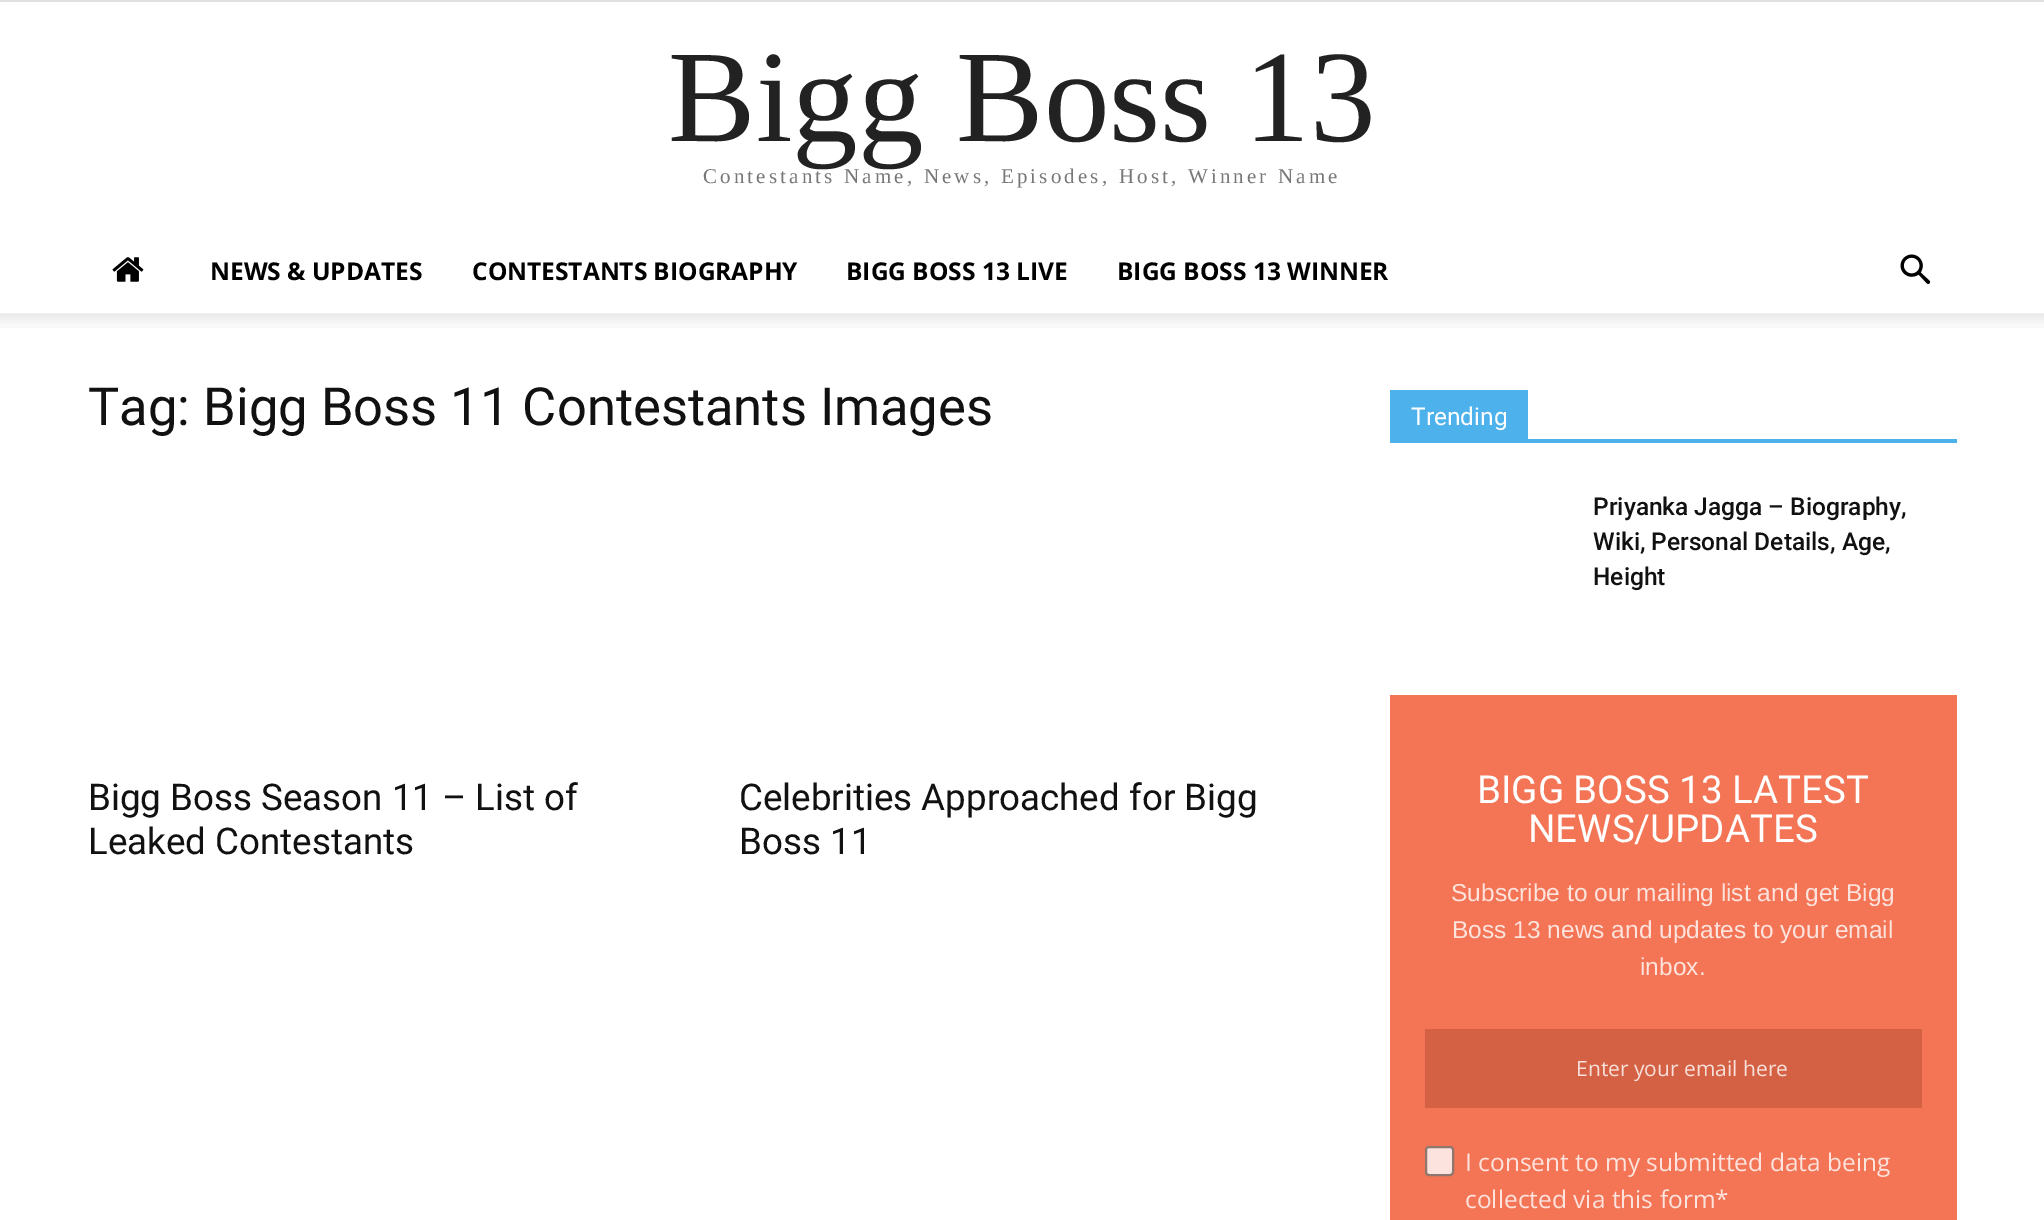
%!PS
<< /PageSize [2044 1220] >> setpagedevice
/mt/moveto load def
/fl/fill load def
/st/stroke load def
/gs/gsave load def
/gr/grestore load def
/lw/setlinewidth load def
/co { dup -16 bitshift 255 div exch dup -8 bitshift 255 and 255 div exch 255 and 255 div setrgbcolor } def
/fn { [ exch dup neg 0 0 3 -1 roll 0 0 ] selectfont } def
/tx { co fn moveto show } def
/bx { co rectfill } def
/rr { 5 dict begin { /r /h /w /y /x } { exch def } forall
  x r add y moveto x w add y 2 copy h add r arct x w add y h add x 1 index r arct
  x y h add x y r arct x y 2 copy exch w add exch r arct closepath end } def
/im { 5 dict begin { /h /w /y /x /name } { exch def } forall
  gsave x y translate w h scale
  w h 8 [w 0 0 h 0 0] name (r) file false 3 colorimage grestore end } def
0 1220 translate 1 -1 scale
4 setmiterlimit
0 0 2044 1220 16#FFFFFF bx
0 0 2044 2 16#E0E0E0 bx
(media/1.raw) 112 257 32 25 im
(media/2.raw) 1900 254 31 30 im
(media/3.raw) 0 313 2044 15 im
1390 439 567 4 16#4DB2EC bx
1390 390 138 49 16#4DB2EC bx
1390 695 567 525 16#F47555 bx
1425 1029 497 79 16#D56144 bx
16#FDE3DD co
1426 1147 27 28 3 rr gs fl gr
16#8F766F co
2 lw
st
(Bigg Boss 13) 668 141 /LiberationSerif-Regular 131.25 16#222222 tx
/LiberationSerif-Regular 21 fn
16#777777 co
703 183 mt 3.15 0 (Contestants Name, News, Episodes, Host, Winner Name) ashow
(NEWS & UPDATES) 210 280 /OpenSans-Bold 24.5 16#000000 tx
(CONTESTANTS BIOGRAPHY) 472 280 /OpenSans-Bold 24.5 16#000000 tx
(BIGG BOSS 13 LIVE) 846 280 /OpenSans-Bold 24.5 16#000000 tx
(BIGG BOSS 13 WINNER) 1117 280 /OpenSans-Bold 24.5 16#000000 tx
(Tag: Bigg Boss 11 Contestants Images) 88 425 /Roboto-Regular 52.5 16#111111 tx
(Bigg Boss Season 11 – List of) 88 810 /Roboto-Regular 36.75 16#111111 tx
(Leaked Contestants) 88 854 /Roboto-Regular 36.75 16#111111 tx
(Celebrities Approached for Bigg) 739 810 /Roboto-Regular 36.75 16#111111 tx
(Boss 11) 739 854 /Roboto-Regular 36.75 16#111111 tx
(Trending) 1411 425 /Roboto-Regular 24.5 16#FFFFFF tx
(Priyanka Jagga – Biography,) 1593 515 /Roboto-Medium 24.5 16#111111 tx
(Wiki, Personal Details, Age,) 1593 550 /Roboto-Medium 24.5 16#111111 tx
(Height) 1593 585 /Roboto-Medium 24.5 16#111111 tx
(BIGG BOSS 13 LATEST) 1477 803 /Roboto-Regular 38.5 16#FFFFFF tx
(NEWS/UPDATES) 1528 842 /Roboto-Regular 38.5 16#FFFFFF tx
(Subscribe to our mailing list and get Bigg) 1451 901 /LiberationSans-Regular 24.5 16#FDE3DD tx
(Boss 13 news and updates to your email) 1452 938 /LiberationSans-Regular 24.5 16#FDE3DD tx
(inbox.) 1640 975 /LiberationSans-Regular 24.5 16#FDE3DD tx
(Enter your email here) 1576 1076 /OpenSans-Regular 21 16#F7DFDA tx
(I consent to my submitted data being) 1465 1171 /OpenSans-Regular 24.5 16#FDE3DD tx
(collected via this form*) 1465 1208 /OpenSans-Regular 24.5 16#FDE3DD tx
showpage
